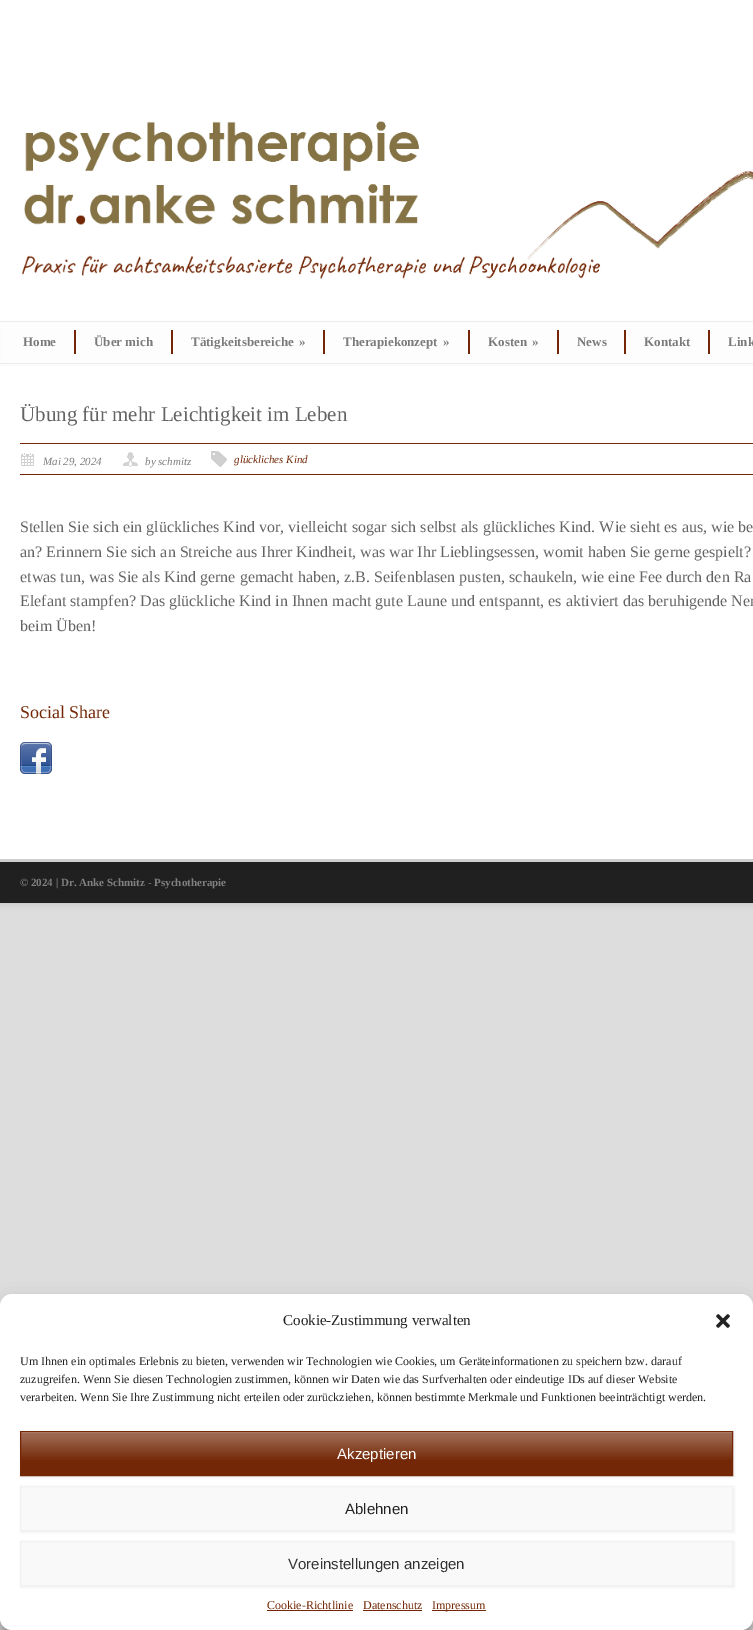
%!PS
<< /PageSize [753 1630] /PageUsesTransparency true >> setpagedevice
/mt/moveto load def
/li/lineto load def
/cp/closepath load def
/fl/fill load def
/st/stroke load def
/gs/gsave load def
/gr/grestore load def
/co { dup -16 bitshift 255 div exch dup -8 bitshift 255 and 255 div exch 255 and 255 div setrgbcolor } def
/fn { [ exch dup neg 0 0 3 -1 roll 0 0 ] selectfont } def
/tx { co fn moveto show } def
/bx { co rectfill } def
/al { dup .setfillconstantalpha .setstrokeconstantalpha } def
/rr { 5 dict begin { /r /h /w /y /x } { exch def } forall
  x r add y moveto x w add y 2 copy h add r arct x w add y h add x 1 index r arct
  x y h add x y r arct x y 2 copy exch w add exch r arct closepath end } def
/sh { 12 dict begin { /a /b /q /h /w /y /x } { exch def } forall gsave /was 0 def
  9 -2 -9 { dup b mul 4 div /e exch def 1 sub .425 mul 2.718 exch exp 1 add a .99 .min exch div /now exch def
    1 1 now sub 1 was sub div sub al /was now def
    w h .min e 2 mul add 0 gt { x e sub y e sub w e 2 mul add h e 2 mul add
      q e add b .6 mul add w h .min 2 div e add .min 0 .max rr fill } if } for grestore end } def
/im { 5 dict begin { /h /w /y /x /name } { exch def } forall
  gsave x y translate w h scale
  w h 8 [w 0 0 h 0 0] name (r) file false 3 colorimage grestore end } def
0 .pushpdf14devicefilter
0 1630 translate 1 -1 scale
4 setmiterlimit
0 0 753 1630 16#DDDDDD bx
16#BBBBBB co
0 0 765 903 0 4 1 sh
0 0 753 859 16#FFFFFF bx
(media/1.raw) 21 121 732 158 im
16#F5F5F5 co
1 323 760 41 0 2.5 1 sh
1 323 752 40 16#FDFDFD bx
0 321 753 1 16#ECECEC bx
0 363 753 1 16#ECECEC bx
74 330 2 24 16#732706 bx
171 330 2 24 16#732706 bx
323 330 2 24 16#732706 bx
468 330 2 24 16#732706 bx
557 330 2 24 16#732706 bx
624 330 2 24 16#732706 bx
708 330 2 24 16#732706 bx
20 443 733 1 16#732706 bx
20 474 733 1 16#732706 bx
(media/2.raw) 21 453 13 13 im
(media/3.raw) 123 452 15 15 im
(media/4.raw) 211 451 16 16 im
(media/5.raw) 20 742 32 32 im
0 859 753 3 16#CFCFCF bx
0 862 753 41 16#202020 bx
16#000000 co
0 1300 753 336 12 3 .23 sh
0 1304 753 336 12 10 .19 sh
16#FFFFFF co
0 1294 753 336 12 rr fl
(media/6.raw) 716 1314 14 14 im
16#ECECEC co
21 1432 713 45 0 1.5 1 sh
21 1432 711 43 16#732706 bx
(media/7.raw) 21 1432 711 28 im
20.5 1431.5 712 44 rectstroke
16#ECECEC co
21 1487 713 45 0 1.5 1 sh
16#F9F9F9 co
20.5 1486.5 mt 732.5 1486.5 li 732.5 1530.5 li 20.5 1530.5 li cp gs fl gr
16#F2F2F2 co
st
16#ECECEC co
21 1542 713 45 0 1.5 1 sh
16#F9F9F9 co
20.5 1541.5 mt 732.5 1541.5 li 732.5 1585.5 li 20.5 1585.5 li cp gs fl gr
16#F2F2F2 co
st
267 1610 86 1 16#732706 bx
363 1610 59 1 16#732706 bx
432 1610 54 1 16#732706 bx
(Home) 23 346 /LiberationSerif-Bold 13 16#7A7A7A tx
(Über mich) 94 346 /LiberationSerif-Bold 13 16#7A7A7A tx
(Tätigkeitsbereiche) 191 346 /LiberationSerif-Bold 13 16#7A7A7A tx
(») 299 346 /LiberationSerif-Bold 13 16#7A7A7A tx
(Therapiekonzept) 343 346 /LiberationSerif-Bold 13 16#7A7A7A tx
(») 443 346 /LiberationSerif-Bold 13 16#7A7A7A tx
(Kosten) 488 346 /LiberationSerif-Bold 13 16#7A7A7A tx
(») 532 346 /LiberationSerif-Bold 13 16#7A7A7A tx
(News) 577 346 /LiberationSerif-Bold 13 16#7A7A7A tx
(Kontakt) 644 346 /LiberationSerif-Bold 13 16#7A7A7A tx
(Link) 728 346 /LiberationSerif-Bold 13 16#7A7A7A tx
(Übung für mehr Leichtigkeit im Leben) 20 421 /LiberationSerif-Regular 21 16#646464 tx
(Mai 29, 2024) 43 465 /LiberationSerif-Italic 11 16#7A7A7A tx
(by schmitz) 145 465 /LiberationSerif-Italic 11 16#7A7A7A tx
(glückliches Kind) 234 463 /LiberationSerif-Italic 11 16#732706 tx
(Stellen Sie sich ein glückliches Kind vor, vielleicht sogar sich selbst als glückliches Kind. Wie sieht es aus, wie be) 20 532 /LiberationSerif-Regular 16 16#646464 tx
(an? Erinnern Sie sich an Streiche aus Ihrer Kindheit, was war Ihr Lieblingsessen, womit haben Sie gerne gespielt?) 20 557 /LiberationSerif-Regular 16 16#646464 tx
(etwas tun, was Sie als Kind gerne gemacht haben, z.B. Seifenblasen pusten, schaukeln, wie eine Fee durch den Ra) 20 582 /LiberationSerif-Regular 16 16#646464 tx
(Elefant stampfen? Das glückliche Kind in Ihnen macht gute Laune und entspannt, es aktiviert das beruhigende Ner) 20 606 /LiberationSerif-Regular 16 16#646464 tx
(beim Üben!) 20 631 /LiberationSerif-Regular 16 16#646464 tx
(Social Share) 20 718 /LiberationSerif-Regular 18 16#732706 tx
(© 2024 | Dr. Anke Schmitz - Psychotherapie) 20 886 /LiberationSerif-Bold 11 16#808080 tx
(Cookie-Zustimmung verwalten) 283 1325 /LiberationSerif-Regular 15 16#222222 tx
(Um Ihnen ein optimales Erlebnis zu bieten, verwenden wir Technologien wie Cookies, um Geräteinformationen zu speichern bzw. darauf) 20 1365 /LiberationSerif-Regular 12 16#222222 tx
(zuzugreifen. Wenn Sie diesen Technologien zustimmen, können wir Daten wie das Surfverhalten oder eindeutige IDs auf dieser Website) 20 1383 /LiberationSerif-Regular 12 16#222222 tx
(verarbeiten. Wenn Sie Ihre Zustimmung nicht erteilen oder zurückziehen, können bestimmte Merkmale und Funktionen beeinträchtigt werden.) 20 1401 /LiberationSerif-Regular 12 16#222222 tx
(Akzeptieren) 337 1459 /LiberationSans-Regular 15 16#FFFFFF tx
(Ablehnen) 345 1514 /LiberationSans-Regular 15 16#222222 tx
(Voreinstellungen anzeigen) 288 1569 /LiberationSans-Regular 15 16#333333 tx
(Cookie-Richtlinie) 267 1609 /LiberationSerif-Regular 12 16#732706 tx
(Datenschutz) 363 1609 /LiberationSerif-Regular 12 16#732706 tx
(Impressum) 432 1609 /LiberationSerif-Regular 12 16#732706 tx
.poppdf14devicefilter showpage
